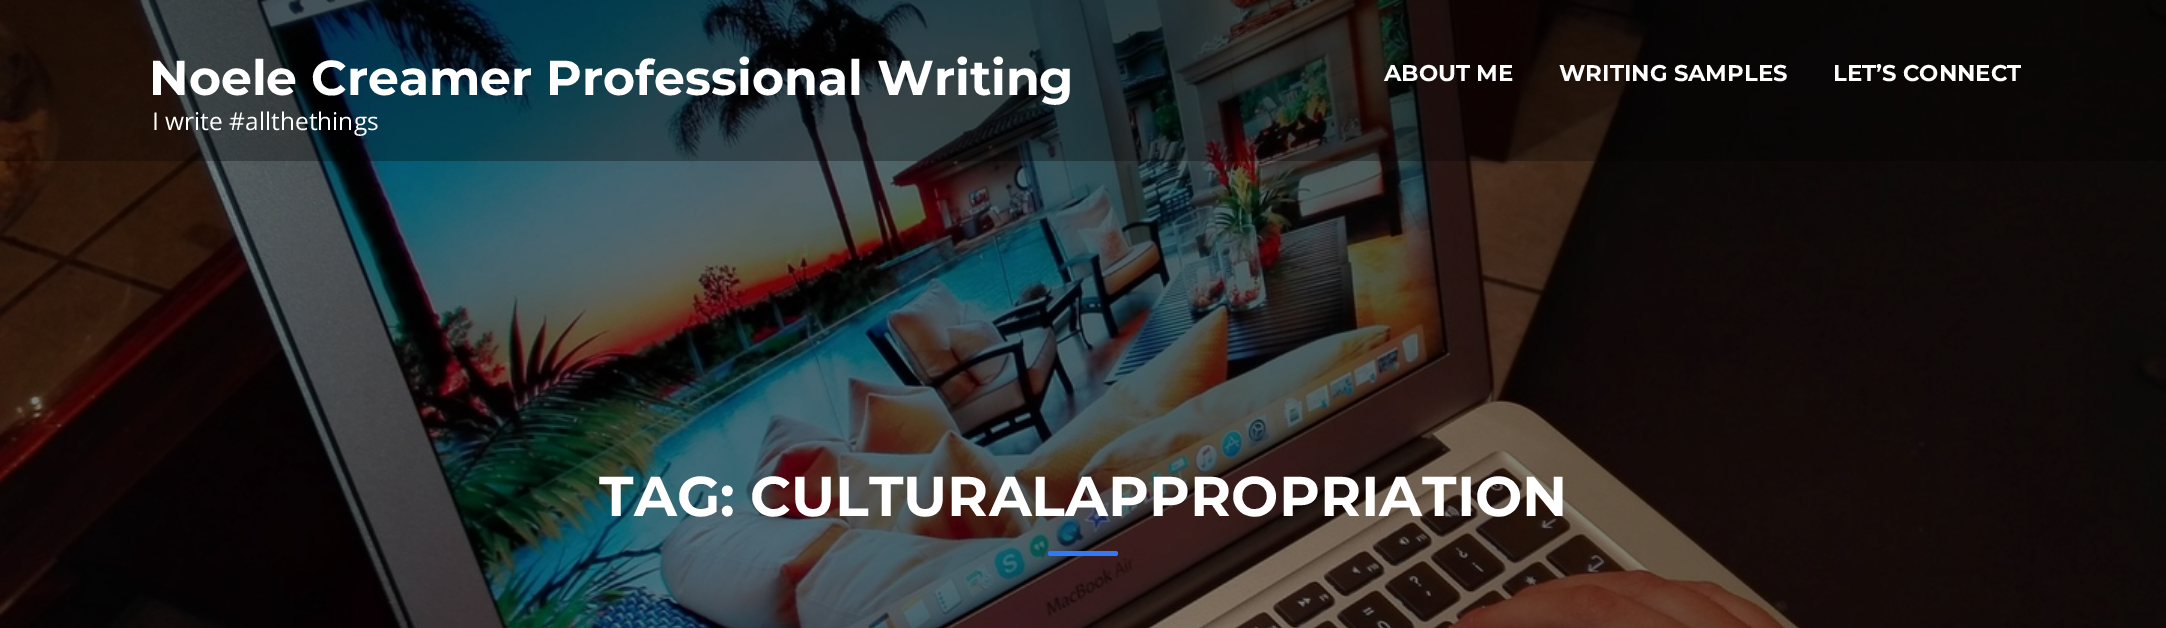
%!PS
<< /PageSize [2166 628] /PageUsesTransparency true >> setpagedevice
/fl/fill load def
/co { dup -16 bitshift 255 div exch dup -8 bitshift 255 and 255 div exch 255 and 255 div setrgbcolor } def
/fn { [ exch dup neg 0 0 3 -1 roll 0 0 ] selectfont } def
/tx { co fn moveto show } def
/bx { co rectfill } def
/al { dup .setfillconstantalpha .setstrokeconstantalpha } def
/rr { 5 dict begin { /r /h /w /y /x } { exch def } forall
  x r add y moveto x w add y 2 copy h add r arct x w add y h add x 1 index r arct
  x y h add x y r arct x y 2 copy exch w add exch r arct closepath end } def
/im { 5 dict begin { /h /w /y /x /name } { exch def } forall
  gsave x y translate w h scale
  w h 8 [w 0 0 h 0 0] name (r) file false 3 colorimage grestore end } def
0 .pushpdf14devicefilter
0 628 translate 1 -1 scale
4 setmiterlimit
0 0 2166 628 16#FFFFFF bx
(media/1.raw) 0 0 2166 628 im
0.3 al
0 0 2166 161 16#000000 bx
1 al
16#3178FB co
1048 551 70 5 2.5 rr fl
(Noele Creamer Professional Writing) 149 95 /Montserrat-Bold 49 16#FFFFFF tx
(I write #allthethings) 152 130 /OpenSans-Regular 24.5 16#FFFFFF tx
(ABOUT ME) 1384 81 /Montserrat-Bold 22.75 16#FFFFFF tx
(WRITING SAMPLES) 1559 81 /Montserrat-Bold 22.75 16#FFFFFF tx
(LET’S CONNECT) 1833 81 /Montserrat-Bold 22.75 16#FFFFFF tx
(TAG: CULTURALAPPROPRIATION) 599 516 /Montserrat-Bold 56 16#FFFFFF tx
.poppdf14devicefilter showpage
